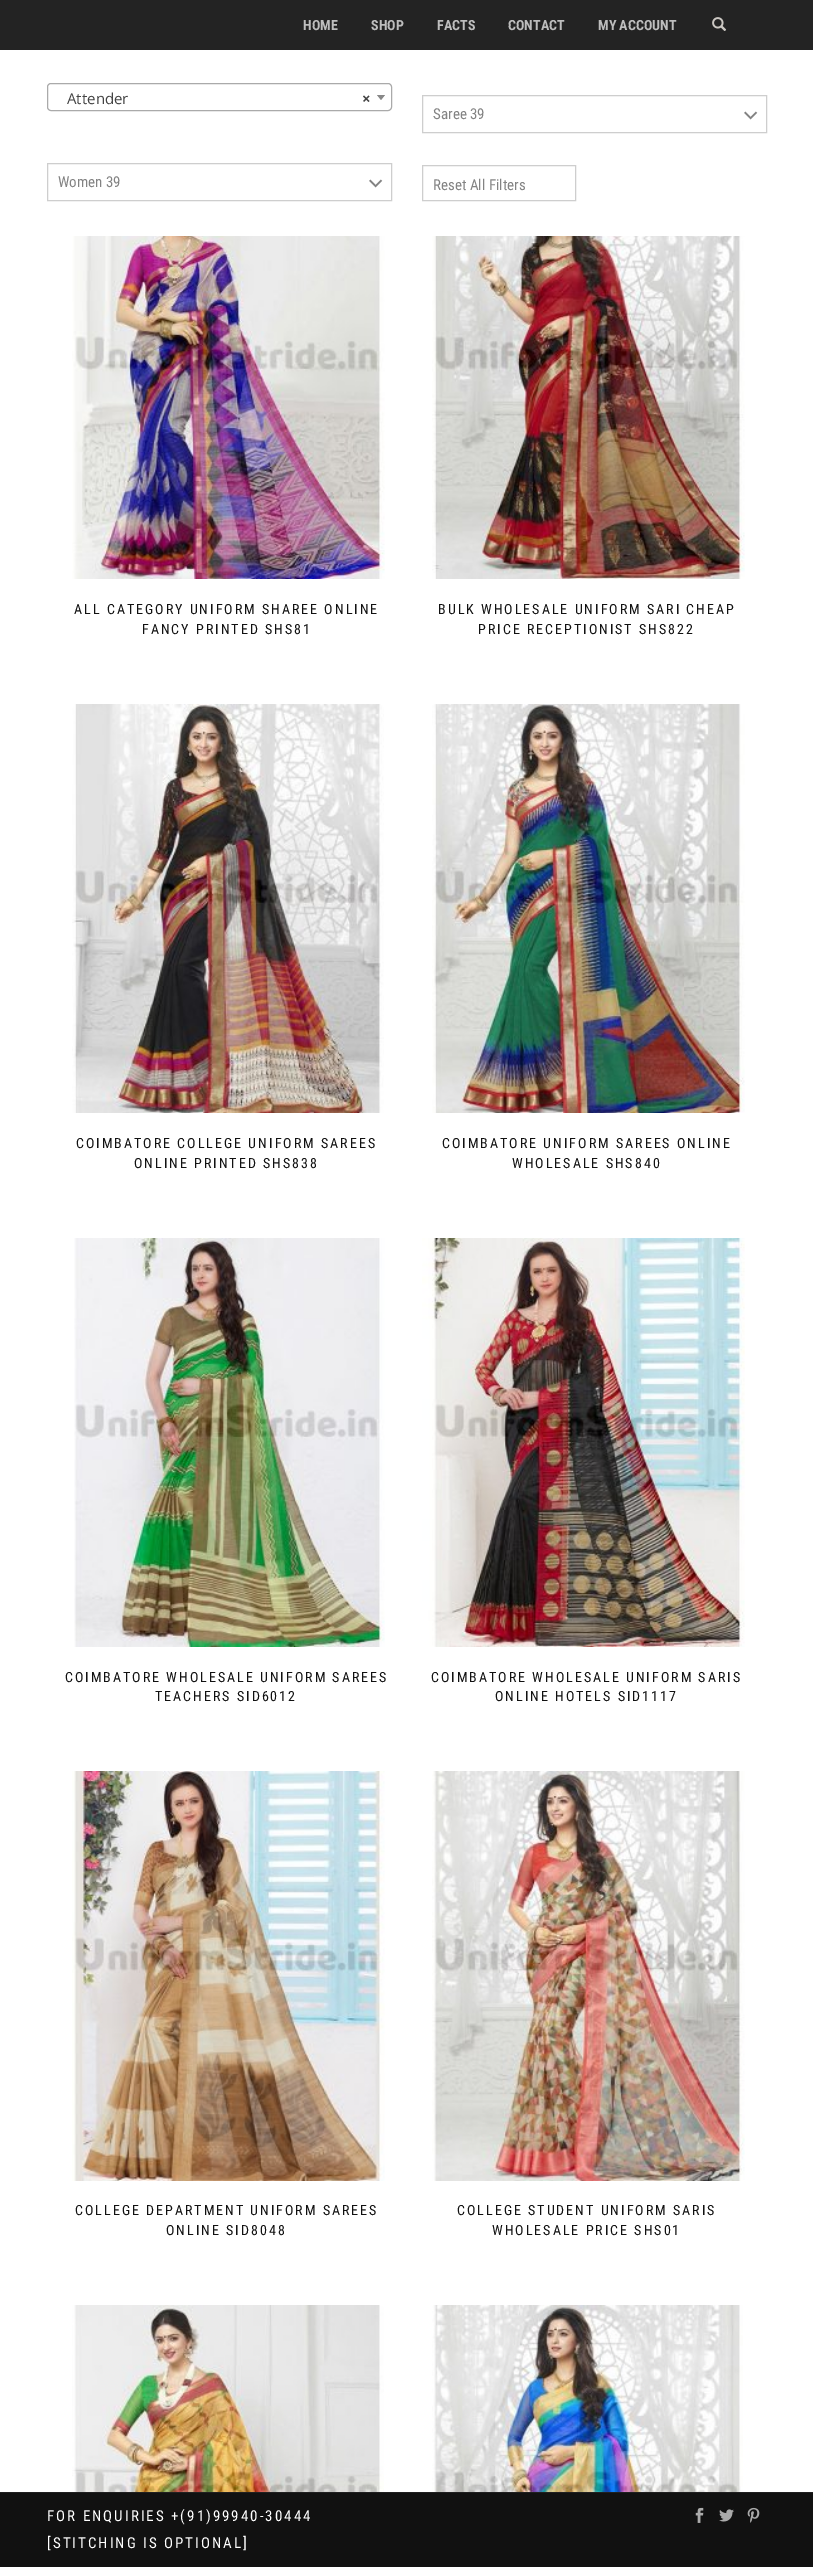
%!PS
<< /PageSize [813 2567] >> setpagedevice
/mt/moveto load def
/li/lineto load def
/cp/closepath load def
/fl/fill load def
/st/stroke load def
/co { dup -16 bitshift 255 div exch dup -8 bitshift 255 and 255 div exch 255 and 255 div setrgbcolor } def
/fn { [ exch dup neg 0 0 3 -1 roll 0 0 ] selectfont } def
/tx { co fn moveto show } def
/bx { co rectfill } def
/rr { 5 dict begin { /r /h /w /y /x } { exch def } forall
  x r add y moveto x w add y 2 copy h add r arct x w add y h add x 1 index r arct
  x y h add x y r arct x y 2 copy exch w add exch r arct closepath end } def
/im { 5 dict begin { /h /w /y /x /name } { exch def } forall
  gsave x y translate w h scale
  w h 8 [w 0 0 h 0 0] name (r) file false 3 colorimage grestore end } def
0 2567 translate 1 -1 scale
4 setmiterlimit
0 0 813 2567 16#FFFFFF bx
0 0 813 50 16#232323 bx
(media/1.raw) 712 17 15 14 im
16#AAAAAA co
47.5 83.5 344 27 3.5 rr st
16#888888 co
377 95 mt 385 95 li 381 100 li cp fl
(media/2.raw) 744 111 14 9 im
16#CECECE co
422.5 95.5 344 37 rectstroke
(media/2.raw) 369 179 14 9 im
47.5 163.5 344 37 rectstroke
422.5 165.5 153 35 rectstroke
(media/3.raw) 72 236 313 343 im
(media/4.raw) 432 236 313 343 im
(media/5.raw) 72 704 312 409 im
(media/6.raw) 432 704 313 409 im
(media/7.raw) 74 1238 311 409 im
(media/8.raw) 422 1238 323 409 im
(media/9.raw) 72 1771 313 410 im
(media/10.raw) 432 1771 313 410 im
(media/11.raw) 72 2305 312 187 im
(media/12.raw) 432 2305 311 187 im
0 2493 813 74 16#111111 bx
0 2492 813 1 16#202020 bx
(media/13.raw) 695 2507 9 16 im
(media/14.raw) 719 2509 15 13 im
(media/15.raw) 747 2507 13 16 im
(HOME) 303 30 /RobotoCondensed-Bold 14 16#BDBDBD tx
(SHOP) 371 30 /RobotoCondensed-Bold 14 16#BDBDBD tx
(FACTS) 437 30 /RobotoCondensed-Bold 14 16#BDBDBD tx
(CONTACT) 508 30 /RobotoCondensed-Bold 14 16#BDBDBD tx
(MY ACCOUNT) 598 30 /RobotoCondensed-Bold 14 16#BDBDBD tx
(Attender) 67 104 /OpenSans-Regular 15 16#444444 tx
(×) 362 104 /OpenSans-Bold 15 16#444444 tx
(Saree 39) 433 119 /RobotoCondensed-Regular 15 16#838383 tx
(Women 39) 58 187 /RobotoCondensed-Regular 15 16#838383 tx
(Reset All Filters) 433 190 /RobotoCondensed-Regular 15 16#838383 tx
/RobotoCondensed-Regular 14 fn
16#111111 co
74 614 mt 2 0 (ALL CATEGORY UNIFORM SHAREE ONLINE) ashow
142 634 mt 2 0 (FANCY PRINTED SHS81) ashow
438 614 mt 2 0 (BULK WHOLESALE UNIFORM SARI CHEAP) ashow
478 634 mt 2 0 (PRICE RECEPTIONIST SHS822) ashow
76 1148 mt 2 0 (COIMBATORE COLLEGE UNIFORM SAREES) ashow
134 1168 mt 2 0 (ONLINE PRINTED SHS838) ashow
442 1148 mt 2 0 (COIMBATORE UNIFORM SAREES ONLINE) ashow
512 1168 mt 2 0 (WHOLESALE SHS840) ashow
65 1682 mt 2 0 (COIMBATORE WHOLESALE UNIFORM SAREES) ashow
155 1701 mt 2 0 (TEACHERS SID6012) ashow
431 1682 mt 2 0 (COIMBATORE WHOLESALE UNIFORM SARIS) ashow
495 1701 mt 2 0 (ONLINE HOTELS SID1117) ashow
75 2215 mt 2 0 (COLLEGE DEPARTMENT UNIFORM SAREES) ashow
166 2235 mt 2 0 (ONLINE SID8048) ashow
457 2215 mt 2 0 (COLLEGE STUDENT UNIFORM SARIS) ashow
492 2235 mt 2 0 (WHOLESALE PRICE SHS01) ashow
/RobotoCondensed-Regular 15 fn
16#FFFFFF co
47 2521 mt 2 0 (FOR ENQUIRIES +\(91\)99940-30444) ashow
47 2548 mt 2 0 ([STITCHING IS OPTIONAL]) ashow
showpage
